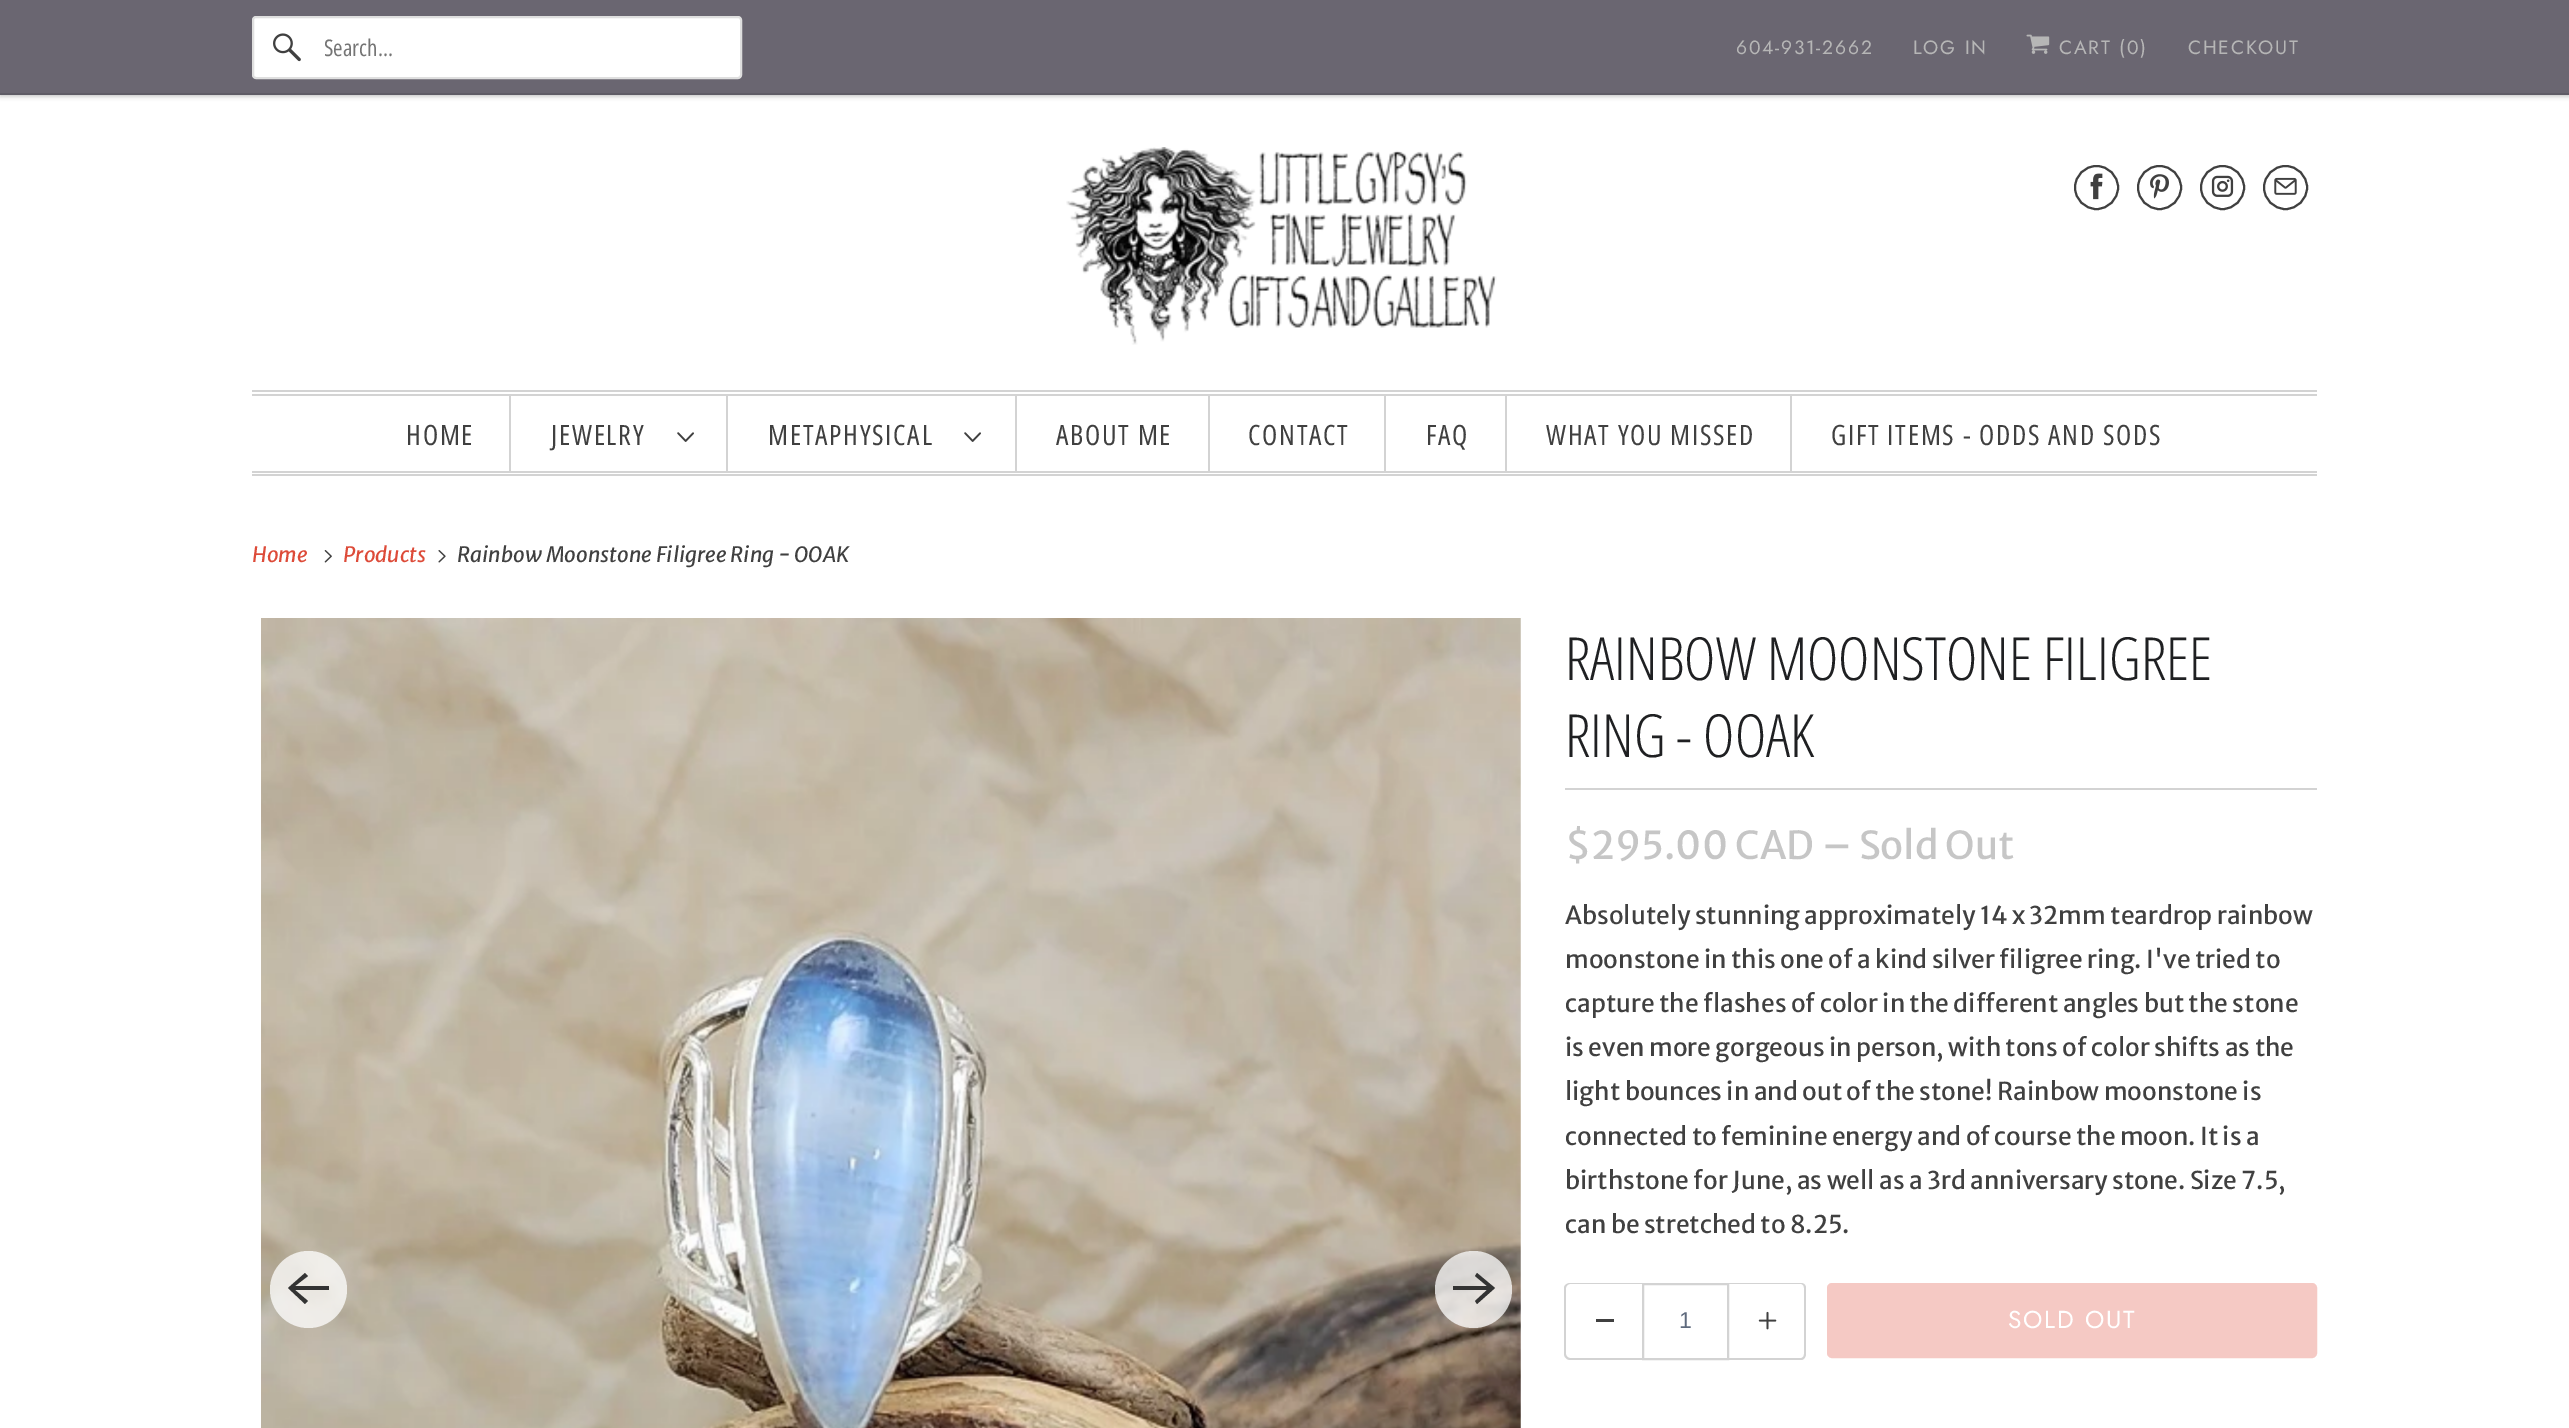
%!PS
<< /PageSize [2569 1428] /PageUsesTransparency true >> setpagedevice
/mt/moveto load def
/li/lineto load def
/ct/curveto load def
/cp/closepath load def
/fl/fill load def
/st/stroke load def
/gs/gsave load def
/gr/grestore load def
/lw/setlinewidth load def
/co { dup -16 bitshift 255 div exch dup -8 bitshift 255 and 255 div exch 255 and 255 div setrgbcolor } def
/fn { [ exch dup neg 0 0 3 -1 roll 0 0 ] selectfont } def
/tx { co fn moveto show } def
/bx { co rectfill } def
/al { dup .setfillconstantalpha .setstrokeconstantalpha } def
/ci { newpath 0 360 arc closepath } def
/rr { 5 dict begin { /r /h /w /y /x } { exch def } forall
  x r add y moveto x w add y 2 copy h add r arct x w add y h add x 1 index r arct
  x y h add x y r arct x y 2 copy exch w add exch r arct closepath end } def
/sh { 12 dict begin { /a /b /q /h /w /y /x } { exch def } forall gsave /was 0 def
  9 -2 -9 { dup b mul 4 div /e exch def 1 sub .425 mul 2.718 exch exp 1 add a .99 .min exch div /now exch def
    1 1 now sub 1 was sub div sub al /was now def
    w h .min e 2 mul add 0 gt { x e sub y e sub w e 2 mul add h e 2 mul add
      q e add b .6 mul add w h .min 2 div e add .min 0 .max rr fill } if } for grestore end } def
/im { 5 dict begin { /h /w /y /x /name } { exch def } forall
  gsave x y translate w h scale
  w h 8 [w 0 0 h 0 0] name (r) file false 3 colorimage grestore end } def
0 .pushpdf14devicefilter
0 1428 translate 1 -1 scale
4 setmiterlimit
0 0 2569 1428 16#FFFFFF bx
16#000000 co
0 2 2569 94 0 2.5 .25 sh
0 0 2569 93 16#6A6671 bx
0 93 2569 2 16#5F5C66 bx
16#FFFFFF co
253 17 488 61 3 rr gs fl gr
16#DFDFDF co
2 lw
st
(media/1.raw) 273 33 28 29 im
(media/2.raw) 2026 34 24 20 im
(media/3.raw) 1066 147 431 198 im
16#404040 co
2096.5 187.5 21.5 ci st
(media/4.raw) 2090 173 13 27 im
2159.5 187.5 21.5 ci st
(media/5.raw) 2150 174 19 25 im
2222.5 187.5 21.5 ci st
(media/6.raw) 2211 175 23 22 im
2285.5 187.5 21.5 ci st
(media/7.raw) 2274 177 23 18 im
252 390 2065 2 16#D3D3D3 bx
252 394 2065 2 16#D3D3D3 bx
252 471 2065 2 16#D3D3D3 bx
252 474 2065 2 16#D3D3D3 bx
509 396 2 75 16#D3D3D3 bx
726 396 2 75 16#D3D3D3 bx
(media/8.raw) 677 432 17 10 im
1015 396 2 75 16#D3D3D3 bx
(media/8.raw) 964 432 17 10 im
1208 396 2 75 16#D3D3D3 bx
1384 396 2 75 16#D3D3D3 bx
1505 396 2 75 16#D3D3D3 bx
1790 396 2 75 16#D3D3D3 bx
(media/9.raw) 324 550 8 13 im
(media/10.raw) 438 550 8 13 im
(media/11.raw) 261 618 1260 810 im
0.75 al
16#FFFFFF co
308.5 1289.5 38.5 ci fl
1 al
16#333333 co
329 1286 mt 295 1286 li 308 1276 li 305 1273 li 288 1288 li 305 1304 li 308 1301 li 295 1290 li 329 1290 li cp fl
0.75 al
16#FFFFFF co
1473.5 1289.5 38.5 ci fl
1 al
16#333333 co
1453 1290 mt 1487 1290 li 1475 1301 li 1477 1304 li 1495 1288 li 1477 1273 li 1475 1276 li 1487 1286 li 1453 1286 li cp fl
1565 788 752 2 16#D3D3D3 bx
1570 1283 mt 1642 1283 li 1642 1360 li 1570 1360 li 1567 1360 1564 1357 1564 1354 ct 1564 1288 li 1564 1285 1567 1283 1570 1283 ct cp 1570 1284 mt 1642 1284 li 1642 1358 li 1570 1358 li 1568 1358 1566 1356 1566 1354 ct 1566 1288 li 1566 1286 1568 1284 1570 1284 ct cp eofill
1596 1319 18 3 16#404040 bx
16#D3D3D3 co
1643 1284 85 75 rectstroke
1729 1283 mt 1801 1283 li 1804 1283 1806 1285 1806 1288 ct 1806 1354 li 1806 1357 1804 1360 1801 1360 ct 1729 1360 li cp 1729 1284 mt 1801 1284 li 1803 1284 1804 1286 1804 1288 ct 1804 1354 li 1804 1356 1803 1358 1801 1358 ct 1729 1358 li cp eofill
(media/12.raw) 1758 1311 19 19 im
16#F5C9C4 co
1828 1284 488 73 4 rr gs fl gr
st
(Search...) 324 56 /OpenSansCondensed-Regular 23 16#757575 tx
/Jost-Regular 19.25 fn
16#B6B6B6 co
1736 54 mt 1.75 0 (604-931-2662) ashow
1913 54 mt 1.75 0 (LOG IN) ashow
2059 54 mt 1.75 0 (CART \(0\)) ashow
2188 54 mt 1.75 0 (CHECKOUT) ashow
/OpenSansCondensed-Regular 28 fn
16#404040 co
406 445 mt 1.75 0 (HOME) ashow
551 445 mt 1.75 0 (JEWELRY) ashow
768 445 mt 1.75 0 (METAPHYSICAL) ashow
1056 445 mt 1.75 0 (ABOUT ME) ashow
1248 445 mt 1.75 0 (CONTACT) ashow
1426 445 mt 1.75 0 (FAQ) ashow
1546 445 mt 1.75 0 (WHAT YOU MISSED) ashow
1831 445 mt 1.75 0 (GIFT ITEMS - ODDS AND SODS) ashow
(Home) 252 562 /MerriweatherSans-Italic 21 16#DD4B39 tx
(Products) 343 562 /MerriweatherSans-Italic 21 16#DD4B39 tx
(Rainbow Moonstone Filigree Ring - OOAK) 457 562 /MerriweatherSans-Italic 21 16#404040 tx
(RAINBOW MOONSTONE FILIGREE) 1565 680 /OpenSansCondensed-Light 59.5 16#1F2022 tx
(RING - OOAK) 1565 757 /OpenSansCondensed-Light 59.5 16#1F2022 tx
($295.00 CAD) 1565 859 /MerriweatherSans-Regular 38.5 16#C6C6C6 tx
(– Sold Out) 1822 859 /MerriweatherSans-Regular 38.5 16#C6C6C6 tx
(Absolutely stunning approximately 14 x 32mm teardrop rainbow) 1565 924 /MerriweatherSans-Regular 24.5 16#404040 tx
(moonstone in this one of a kind silver filigree ring. I've tried to) 1565 968 /MerriweatherSans-Regular 24.5 16#404040 tx
(capture the flashes of color in the different angles but the stone) 1565 1012 /MerriweatherSans-Regular 24.5 16#404040 tx
(is even more gorgeous in person, with tons of color shifts as the) 1565 1056 /MerriweatherSans-Regular 24.5 16#404040 tx
(light bounces in and out of the stone! Rainbow moonstone is) 1565 1100 /MerriweatherSans-Regular 24.5 16#404040 tx
(connected to feminine energy and of course the moon. It is a) 1565 1145 /MerriweatherSans-Regular 24.5 16#404040 tx
(birthstone for June, as well as a 3rd anniversary stone. Size 7.5,) 1565 1189 /MerriweatherSans-Regular 24.5 16#404040 tx
(can be stretched to 8.25.) 1565 1233 /MerriweatherSans-Regular 24.5 16#404040 tx
(1) 1679 1328 /LiberationSans-Regular 23 16#5F6A7D tx
/Jost-Regular 24.5 fn
16#FFFFFF co
2008 1328 mt 1.75 0 (SOLD OUT) ashow
.poppdf14devicefilter showpage
